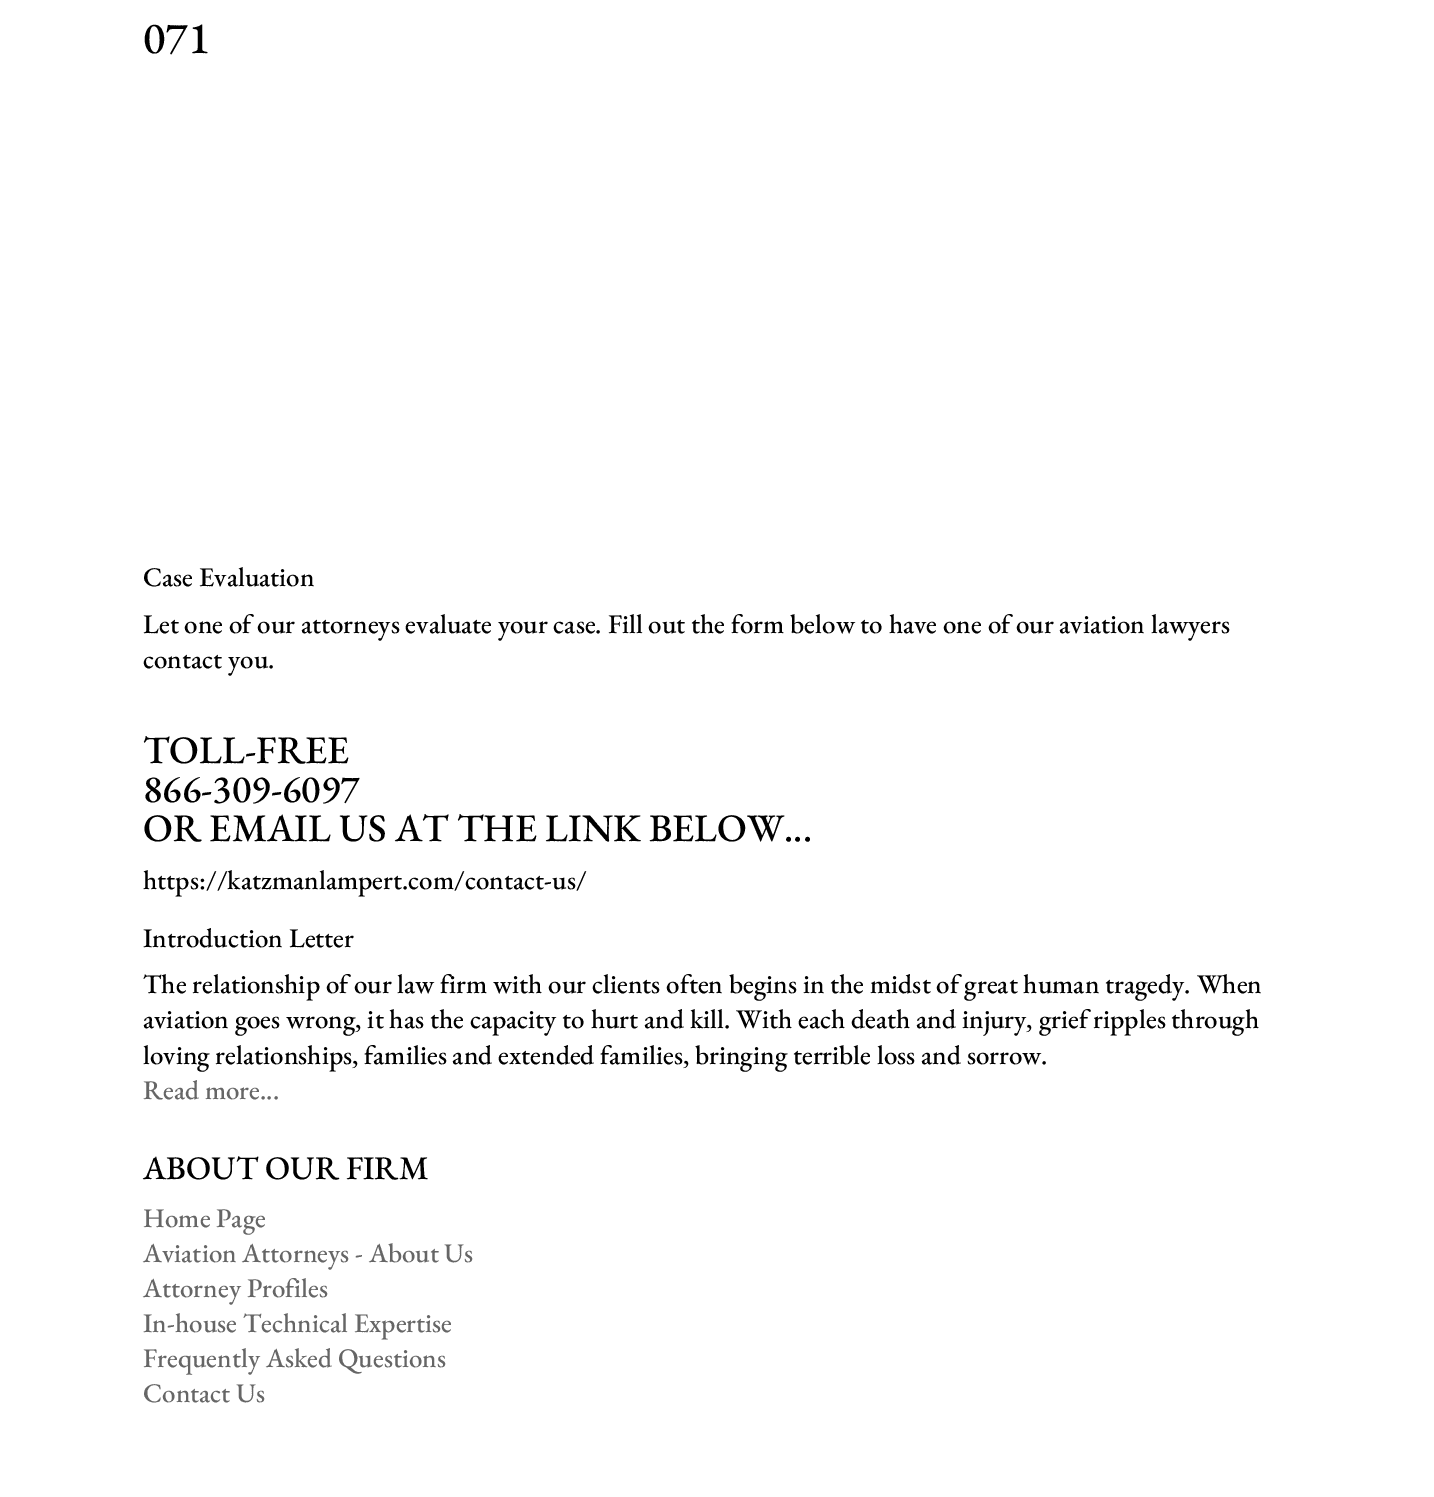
%!PS
<< /PageSize [1434 1497] >> setpagedevice
/co { dup -16 bitshift 255 div exch dup -8 bitshift 255 and 255 div exch 255 and 255 div setrgbcolor } def
/fn { [ exch dup neg 0 0 3 -1 roll 0 0 ] selectfont } def
/tx { co fn moveto show } def
/bx { co rectfill } def
0 1497 translate 1 -1 scale
4 setmiterlimit
0 0 1434 1497 16#FFFFFF bx
(071) 143 53 /EBGaramond-Medium 45 16#000000 tx
(Case Evaluation) 143 586 /EBGaramond-Medium 27 16#000000 tx
(Let one of our attorneys evaluate your case. Fill out the form below to have one of our aviation lawyers) 143 633 /EBGaramond-Medium 27 16#000000 tx
(contact you.) 143 668 /EBGaramond-Medium 27 16#000000 tx
(TOLL-FREE) 143 763 /EBGaramond-Medium 39 16#000000 tx
(866-309-6097) 143 802 /EBGaramond-Medium 39 16#000000 tx
(OR EMAIL US AT THE LINK BELOW...) 143 841 /EBGaramond-Medium 39 16#000000 tx
(https://katzmanlampert.com/contact-us/) 143 889 /EBGaramond-Medium 27 16#000000 tx
(Introduction Letter) 143 947 /EBGaramond-Medium 27 16#000000 tx
(The relationship of our law firm with our clients often begins in the midst of great human tragedy. When) 143 993 /EBGaramond-Medium 27 16#000000 tx
(aviation goes wrong, it has the capacity to hurt and kill. With each death and injury, grief ripples through) 143 1028 /EBGaramond-Medium 27 16#000000 tx
(loving relationships, families and extended families, bringing terrible loss and sorrow.) 143 1064 /EBGaramond-Medium 27 16#000000 tx
(Read more...) 143 1099 /EBGaramond-Medium 27 16#666666 tx
(ABOUT OUR FIRM) 143 1179 /EBGaramond-Medium 33 16#000000 tx
(Home Page) 143 1227 /EBGaramond-Medium 27 16#666666 tx
(Aviation Attorneys - About Us) 143 1262 /EBGaramond-Medium 27 16#666666 tx
(Attorney Profiles) 143 1297 /EBGaramond-Medium 27 16#666666 tx
(In-house Technical Expertise) 143 1332 /EBGaramond-Medium 27 16#666666 tx
(Frequently Asked Questions) 143 1367 /EBGaramond-Medium 27 16#666666 tx
(Contact Us) 143 1402 /EBGaramond-Medium 27 16#666666 tx
showpage
